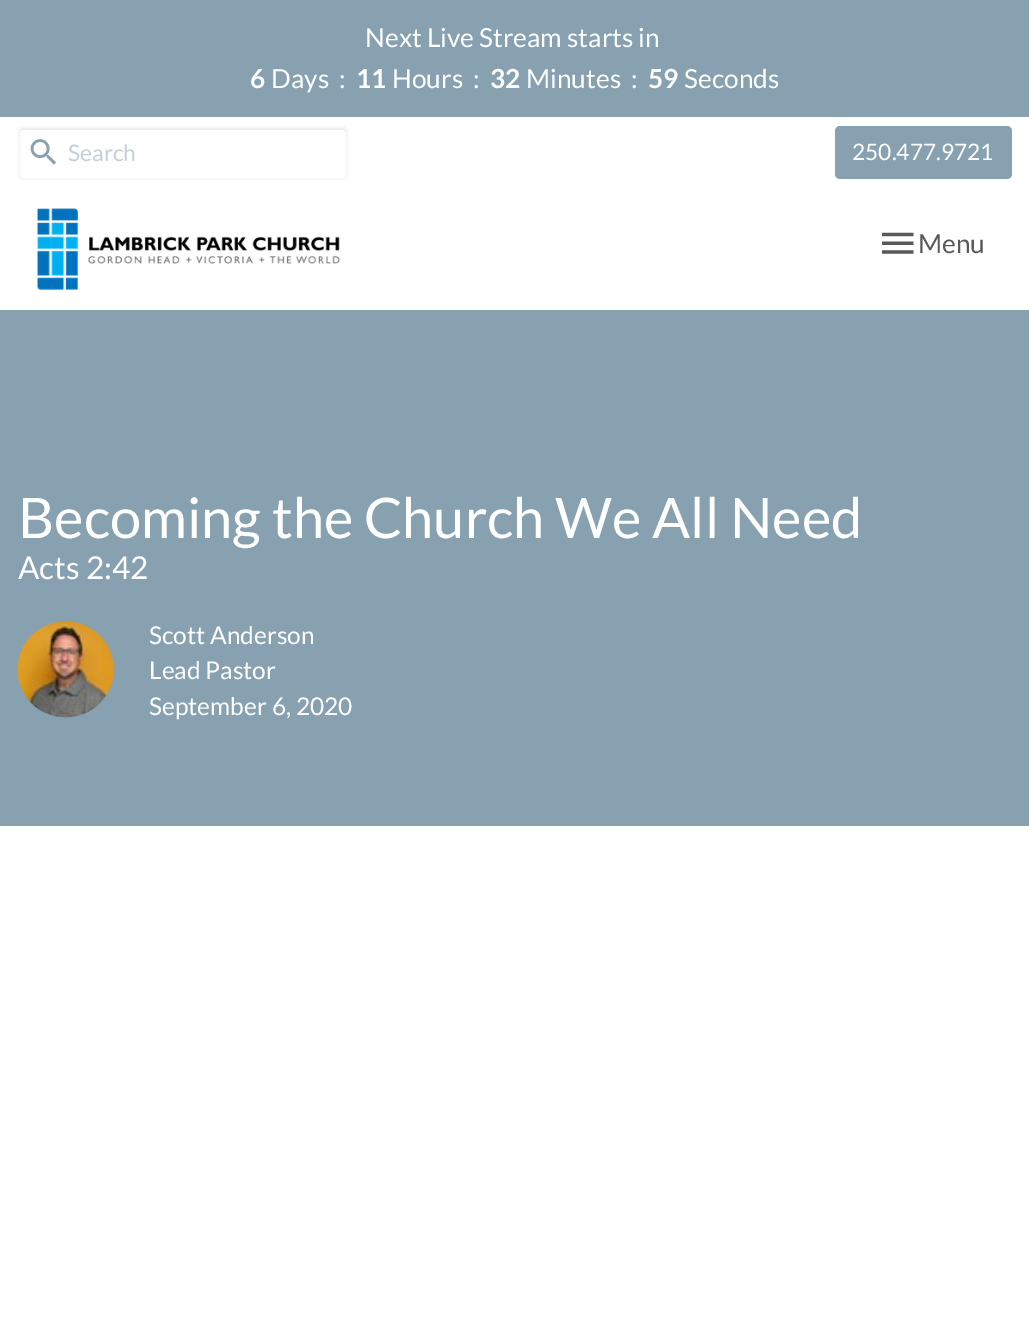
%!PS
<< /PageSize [1029 1335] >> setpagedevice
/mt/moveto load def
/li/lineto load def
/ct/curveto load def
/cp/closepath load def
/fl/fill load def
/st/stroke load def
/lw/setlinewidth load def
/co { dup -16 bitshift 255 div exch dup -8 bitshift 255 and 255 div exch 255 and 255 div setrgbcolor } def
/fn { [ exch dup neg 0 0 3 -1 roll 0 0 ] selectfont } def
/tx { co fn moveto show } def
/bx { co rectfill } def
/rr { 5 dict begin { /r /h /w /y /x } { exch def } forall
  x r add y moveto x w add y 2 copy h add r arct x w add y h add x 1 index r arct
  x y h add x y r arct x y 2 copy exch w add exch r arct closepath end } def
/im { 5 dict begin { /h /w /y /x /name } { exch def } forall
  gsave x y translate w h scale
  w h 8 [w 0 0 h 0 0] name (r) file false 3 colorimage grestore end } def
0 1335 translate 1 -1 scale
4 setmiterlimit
0 0 1029 1335 16#FFFFFF bx
0 0 1029 117 16#87A1B0 bx
16#ECECEC co
23 130 mt 343 130 li 345 130 346 131 346 133 ct 346 178 li 347 177 347 176 347 175 ct 347 132 li 347 130 345 128 343 128 ct 23 128 li 21 128 19 130 19 132 ct 19 133 li 19 131 21 130 23 130 ct cp fl
16#F7F7F7 co
2 lw
19 127 328 52 4 rr st
(media/1.raw) 30 139 26 26 im
16#87A1B0 co
835 126 177 53 5 rr fl
(media/2.raw) 36 208 304 82 im
(media/3.raw) 882 232 32 22 im
0 310 1029 516 16#87A1B0 bx
(media/4.raw) 17 621 97 97 im
(Next Live Stream starts in) 365 47 /Lato-Regular 26.25 16#FFFFFF tx
(6) 250 88 /Lato-Bold 26.25 16#FFFFFF tx
(Days) 271 88 /Lato-Regular 26.25 16#FFFFFF tx
(:) 339 88 /Lato-Regular 26.25 16#FFFFFF tx
(11) 356 88 /Lato-Bold 26.25 16#FFFFFF tx
(Hours) 392 88 /Lato-Regular 26.25 16#FFFFFF tx
(:) 473 88 /Lato-Regular 26.25 16#FFFFFF tx
(32) 490 88 /Lato-Bold 26.25 16#FFFFFF tx
(Minutes) 526 88 /Lato-Regular 26.25 16#FFFFFF tx
(:) 631 88 /Lato-Regular 26.25 16#FFFFFF tx
(59) 648 88 /Lato-Bold 26.25 16#FFFFFF tx
(Seconds) 684 88 /Lato-Regular 26.25 16#FFFFFF tx
(Search) 68 161 /Lato-Regular 22.75 16#C3D0D8 tx
(250.477.9721) 852 160 /Lato-Regular 22.75 16#FFFFFF tx
(Menu) 918 253 /Lato-Regular 26.25 16#595959 tx
(Becoming the Church We All Need) 18 538 /Lato-Regular 56 16#FFFFFF tx
(Acts 2:42) 18 579 /Lato-Regular 31.5 16#FFFFFF tx
(Scott Anderson) 149 644 /Lato-Regular 24.5 16#FFFFFF tx
(Lead Pastor) 149 679 /Lato-Regular 24.5 16#FFFFFF tx
(September 6, 2020) 149 715 /Lato-Regular 24.5 16#FFFFFF tx
showpage
